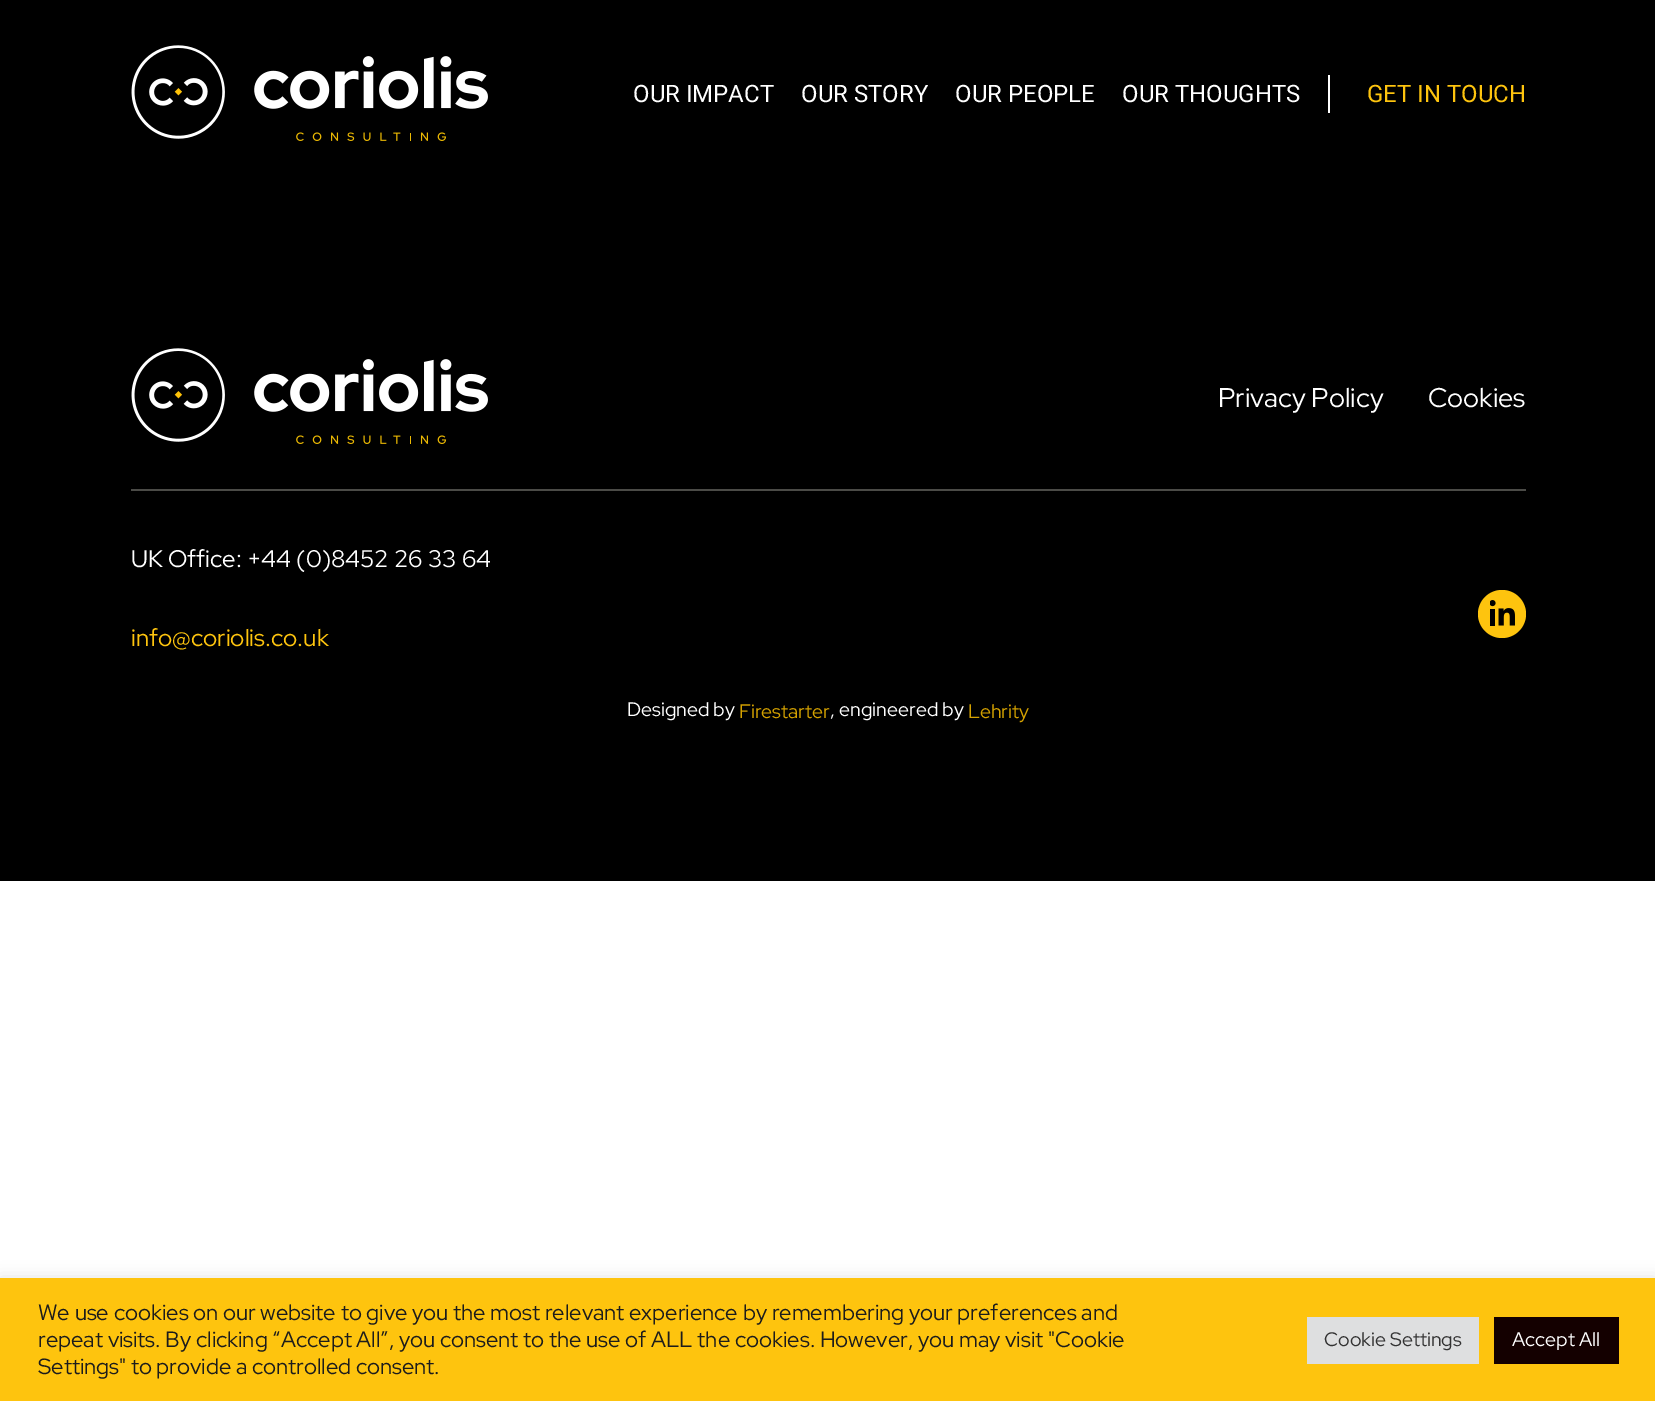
%!PS
<< /PageSize [1655 1401] /PageUsesTransparency true >> setpagedevice
/fl/fill load def
/co { dup -16 bitshift 255 div exch dup -8 bitshift 255 and 255 div exch 255 and 255 div setrgbcolor } def
/fn { [ exch dup neg 0 0 3 -1 roll 0 0 ] selectfont } def
/tx { co fn moveto show } def
/bx { co rectfill } def
/al { dup .setfillconstantalpha .setstrokeconstantalpha } def
/ci { newpath 0 360 arc closepath } def
/rr { 5 dict begin { /r /h /w /y /x } { exch def } forall
  x r add y moveto x w add y 2 copy h add r arct x w add y h add x 1 index r arct
  x y h add x y r arct x y 2 copy exch w add exch r arct closepath end } def
/sh { 12 dict begin { /a /b /q /h /w /y /x } { exch def } forall gsave /was 0 def
  9 -2 -9 { dup b mul 4 div /e exch def 1 sub .425 mul 2.718 exch exp 1 add a .99 .min exch div /now exch def
    1 1 now sub 1 was sub div sub al /was now def
    w h .min e 2 mul add 0 gt { x e sub y e sub w e 2 mul add h e 2 mul add
      q e add b .6 mul add w h .min 2 div e add .min 0 .max rr fill } if } for grestore end } def
/im { 5 dict begin { /h /w /y /x /name } { exch def } forall
  gsave x y translate w h scale
  w h 8 [w 0 0 h 0 0] name (r) file false 3 colorimage grestore end } def
0 .pushpdf14devicefilter
0 1401 translate 1 -1 scale
4 setmiterlimit
0 0 1655 1401 16#FFFFFF bx
0 188 1655 693 16#000000 bx
0 11 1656 187 0 4.5 .2 sh
0 0 1655 188 16#000000 bx
(media/1.raw) 131 45 357 96 im
1328 75 2 38 16#FFFFFF bx
(media/1.raw) 131 348 357 96 im
131 489 1395 2 16#4B4B47 bx
16#FEC40E co
1502 614 24 ci fl
(media/2.raw) 1490 600 25 26 im
16#ACABAB co
0 1277 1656 123 0 7.5 .3 sh
0 1278 1655 123 16#FEC40E bx
1307 1317 172 47 16#DEDFE0 bx
1494 1317 125 47 16#140000 bx
(OUR IMPACT) 633 102 /Roboto-Regular 24 16#FFFFFF tx
(OUR STORY) 801 102 /Roboto-Regular 24 16#FFFFFF tx
(OUR PEOPLE) 955 102 /Roboto-Regular 24 16#FFFFFF tx
(OUR THOUGHTS) 1122 102 /Roboto-Regular 24 16#FFFFFF tx
(GET IN TOUCH) 1367 102 /Roboto-Regular 24 16#FEC40E tx
(Privacy Policy) 1218 407 /RedHatDisplay-Regular 27 16#FFFFFF tx
(Cookies) 1428 407 /RedHatDisplay-Regular 27 16#FFFFFF tx
(UK Office: +44 \(0\)8452 26 33 64) 131 567 /RedHatDisplay-Regular 24 16#FFFFFF tx
(info@coriolis.co.uk) 131 646 /RedHatDisplay-Regular 24 16#FEC40E tx
(Designed by) 627 716 /RedHatDisplay-Regular 19.5 16#FFFFFF tx
(Firestarter) 739 718 /RedHatDisplay-Regular 19.5 16#D4A100 tx
(, engineered by) 830 716 /RedHatDisplay-Regular 19.5 16#FFFFFF tx
(Lehrity) 968 718 /RedHatDisplay-Regular 19.5 16#D4A100 tx
(We use cookies on our website to give you the most relevant experience by remembering your preferences and) 38 1320 /RedHatDisplay-Regular 22 16#1C1C1C tx
(repeat visits. By clicking “Accept All”, you consent to the use of ALL the cookies. However, you may visit "Cookie) 38 1347 /RedHatDisplay-Regular 22 16#1C1C1C tx
(Settings" to provide a controlled consent.) 38 1374 /RedHatDisplay-Regular 22 16#1C1C1C tx
(Cookie Settings) 1324 1346 /RedHatDisplay-Regular 19.5 16#333333 tx
(Accept All) 1512 1346 /RedHatDisplay-Regular 19.5 16#FFFFFF tx
.poppdf14devicefilter showpage
